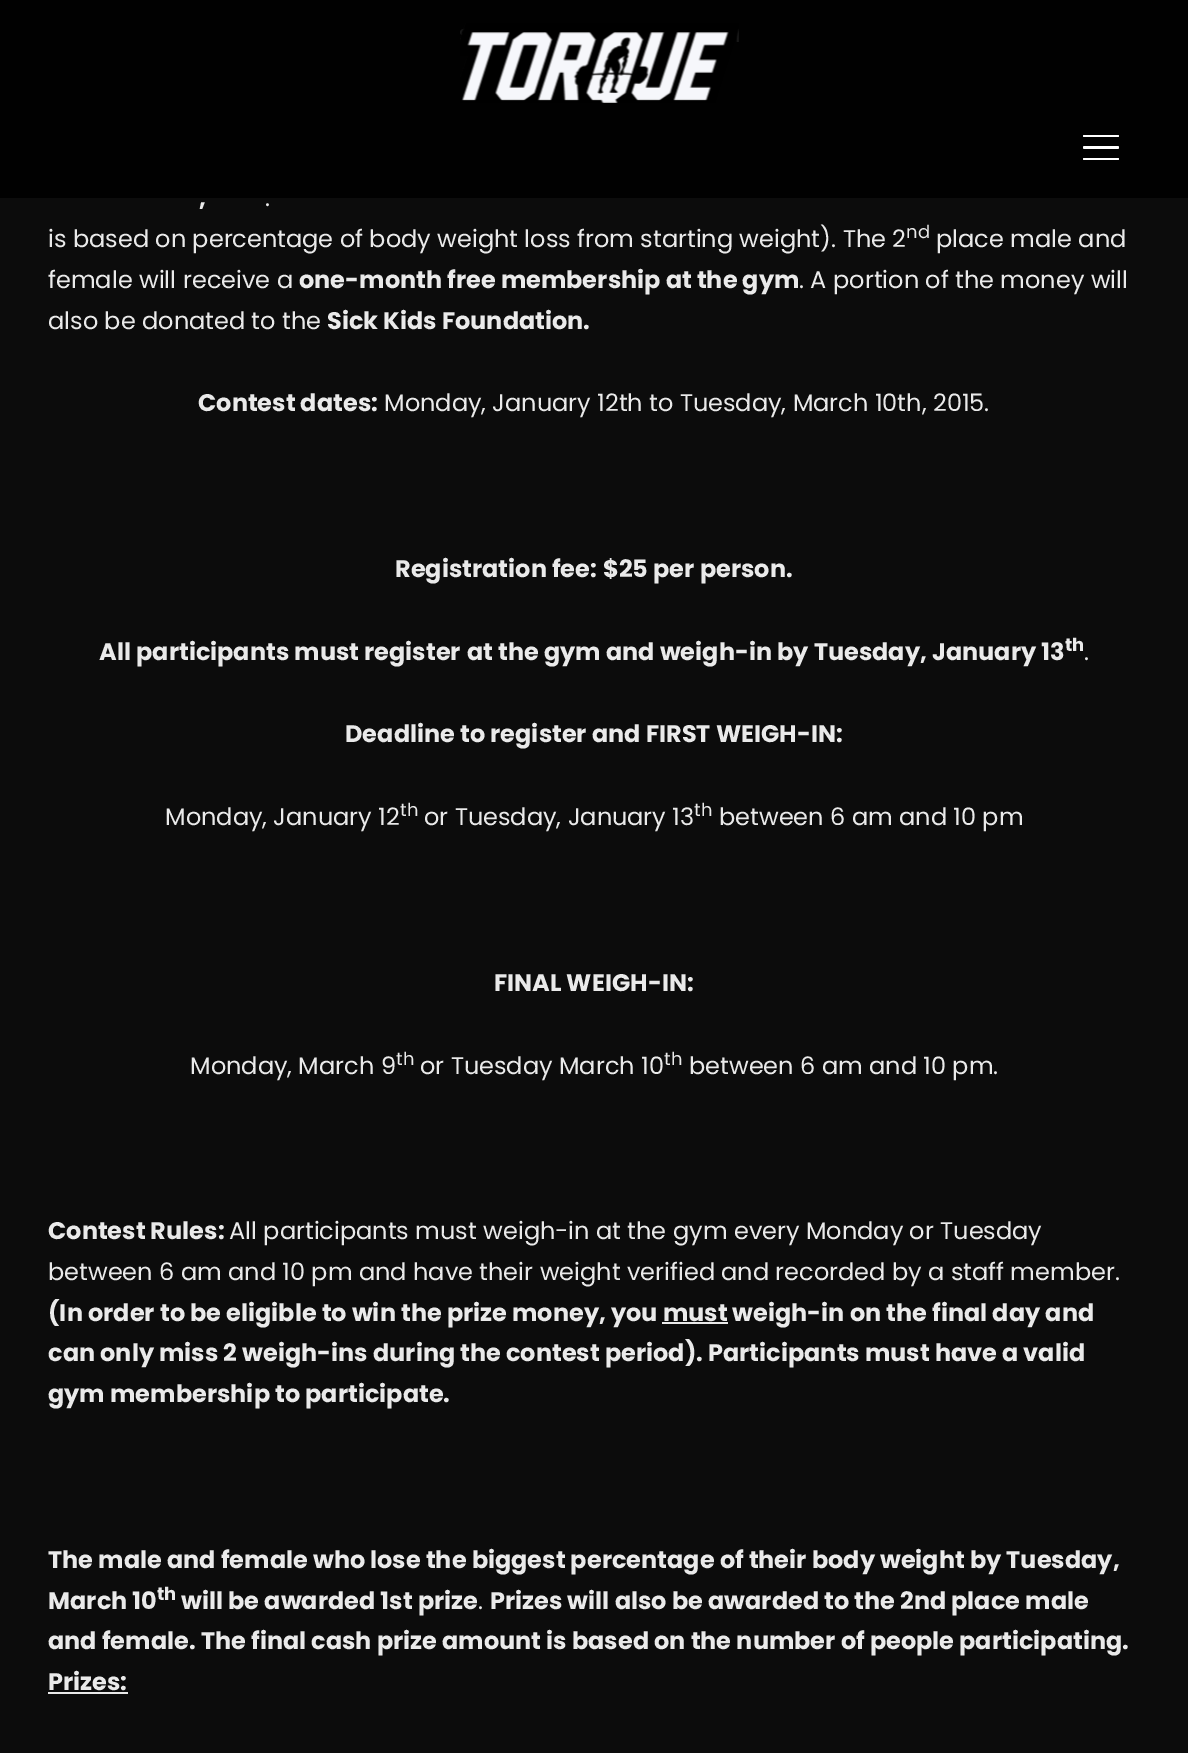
%!PS
<< /PageSize [1188 1753] /PageUsesTransparency true >> setpagedevice
/fl/fill load def
/co { dup -16 bitshift 255 div exch dup -8 bitshift 255 and 255 div exch 255 and 255 div setrgbcolor } def
/fn { [ exch dup neg 0 0 3 -1 roll 0 0 ] selectfont } def
/tx { co fn moveto show } def
/bx { co rectfill } def
/al { dup .setfillconstantalpha .setstrokeconstantalpha } def
/rr { 5 dict begin { /r /h /w /y /x } { exch def } forall
  x r add y moveto x w add y 2 copy h add r arct x w add y h add x 1 index r arct
  x y h add x y r arct x y 2 copy exch w add exch r arct closepath end } def
/im { 5 dict begin { /h /w /y /x /name } { exch def } forall
  gsave x y translate w h scale
  w h 8 [w 0 0 h 0 0] name (r) file false 3 colorimage grestore end } def
0 .pushpdf14devicefilter
0 1753 translate 1 -1 scale
4 setmiterlimit
0 0 1188 1753 16#0C0C0C bx
0.9 al
0 0 1188 198 16#000000 bx
1 al
(media/1.raw) 460 23 279 80 im
16#FFFFFF co
1083 135 36 2 1 rr fl
1083 146 36 3 1.5 rr fl
1083 158 36 2 1 rr fl
662 1322 66 2 16#EAEAEA bx
48 1692 80 2 16#EAEAEA bx
(,) 199 206 /Poppins-Bold 24 16#EAEAEA tx
(.) 265 206 /Poppins-Regular 24 16#EAEAEA tx
(is based on percentage of body weight loss from starting weight\). The 2) 48 247 /Poppins-Regular 24 16#EAEAEA tx
(nd) 906 238 /Poppins-Regular 18 16#EAEAEA tx
(place male and) 936 247 /Poppins-Regular 24 16#EAEAEA tx
(female will receive a) 48 288 /Poppins-Regular 24 16#EAEAEA tx
(one-month free membership at the gym) 299 288 /Poppins-Bold 24 16#EAEAEA tx
(. A portion of the money will) 799 288 /Poppins-Regular 24 16#EAEAEA tx
(also be donated to the) 48 329 /Poppins-Regular 24 16#EAEAEA tx
(Sick Kids Foundation.) 327 329 /Poppins-Bold 24 16#EAEAEA tx
(Contest dates:) 198 411 /Poppins-Bold 24 16#EAEAEA tx
(Monday, January 12th to Tuesday, March 10th, 2015.) 384 411 /Poppins-Regular 24 16#EAEAEA tx
(Registration fee:) 395 577 /Poppins-Bold 24 16#EAEAEA tx
($25 per person.) 603 577 /Poppins-Bold 24 16#EAEAEA tx
(All participants must register) 99 660 /Poppins-Bold 24 16#EAEAEA tx
(at the gym and weigh-in by Tuesday, January 13) 467 660 /Poppins-Bold 24 16#EAEAEA tx
(th) 1065 651 /Poppins-Bold 18 16#EAEAEA tx
(.) 1084 660 /Poppins-Regular 24 16#EAEAEA tx
(Deadline to register and FIRST WEIGH-IN:) 345 742 /Poppins-Bold 24 16#EAEAEA tx
(Monday, January 12) 165 825 /Poppins-Regular 24 16#EAEAEA tx
(th) 400 816 /Poppins-Regular 18 16#EAEAEA tx
(or Tuesday, January 13) 424 825 /Poppins-Regular 24 16#EAEAEA tx
(th) 694 816 /Poppins-Regular 18 16#EAEAEA tx
(between 6 am and 10 pm) 719 825 /Poppins-Regular 24 16#EAEAEA tx
(FINAL WEIGH-IN:) 494 991 /Poppins-Bold 24 16#EAEAEA tx
(Monday, March 9) 190 1074 /Poppins-Regular 24 16#EAEAEA tx
(th) 396 1065 /Poppins-Regular 18 16#EAEAEA tx
(or Tuesday March 10) 420 1074 /Poppins-Regular 24 16#EAEAEA tx
(th) 664 1065 /Poppins-Regular 18 16#EAEAEA tx
(between 6 am and 10 pm.) 689 1074 /Poppins-Regular 24 16#EAEAEA tx
(Contest Rules:) 48 1239 /Poppins-Bold 24 16#EAEAEA tx
(All participants must weigh-in at the gym every Monday or Tuesday) 229 1239 /Poppins-Regular 24 16#EAEAEA tx
(between 6 am and 10 pm and have their weight verified and recorded by a staff member.) 48 1280 /Poppins-Regular 24 16#EAEAEA tx
(\(In order to be eligible to win the prize money, you must weigh-in on the final day and) 48 1321 /Poppins-Bold 24 16#EAEAEA tx
(can only miss 2 weigh-ins during the contest period\). Participants must have a valid) 48 1361 /Poppins-Bold 24 16#EAEAEA tx
(gym membership to participate.) 48 1402 /Poppins-Bold 24 16#EAEAEA tx
(The male and female who lose the biggest percentage of their body weight by Tuesday,) 48 1568 /Poppins-Bold 24 16#EAEAEA tx
(March 10) 48 1609 /Poppins-Bold 24 16#EAEAEA tx
(th) 157 1600 /Poppins-Bold 18 16#EAEAEA tx
(will be awarded 1st prize) 181 1609 /Poppins-Bold 24 16#EAEAEA tx
(.) 478 1609 /Poppins-Regular 24 16#EAEAEA tx
(Prizes will also be awarded to the 2nd place male) 490 1609 /Poppins-Bold 24 16#EAEAEA tx
(and female. The final cash prize amount is based on the number of people participating.) 48 1649 /Poppins-Bold 24 16#EAEAEA tx
(Prizes:) 48 1690 /Poppins-Bold 24 16#EAEAEA tx
.poppdf14devicefilter showpage
